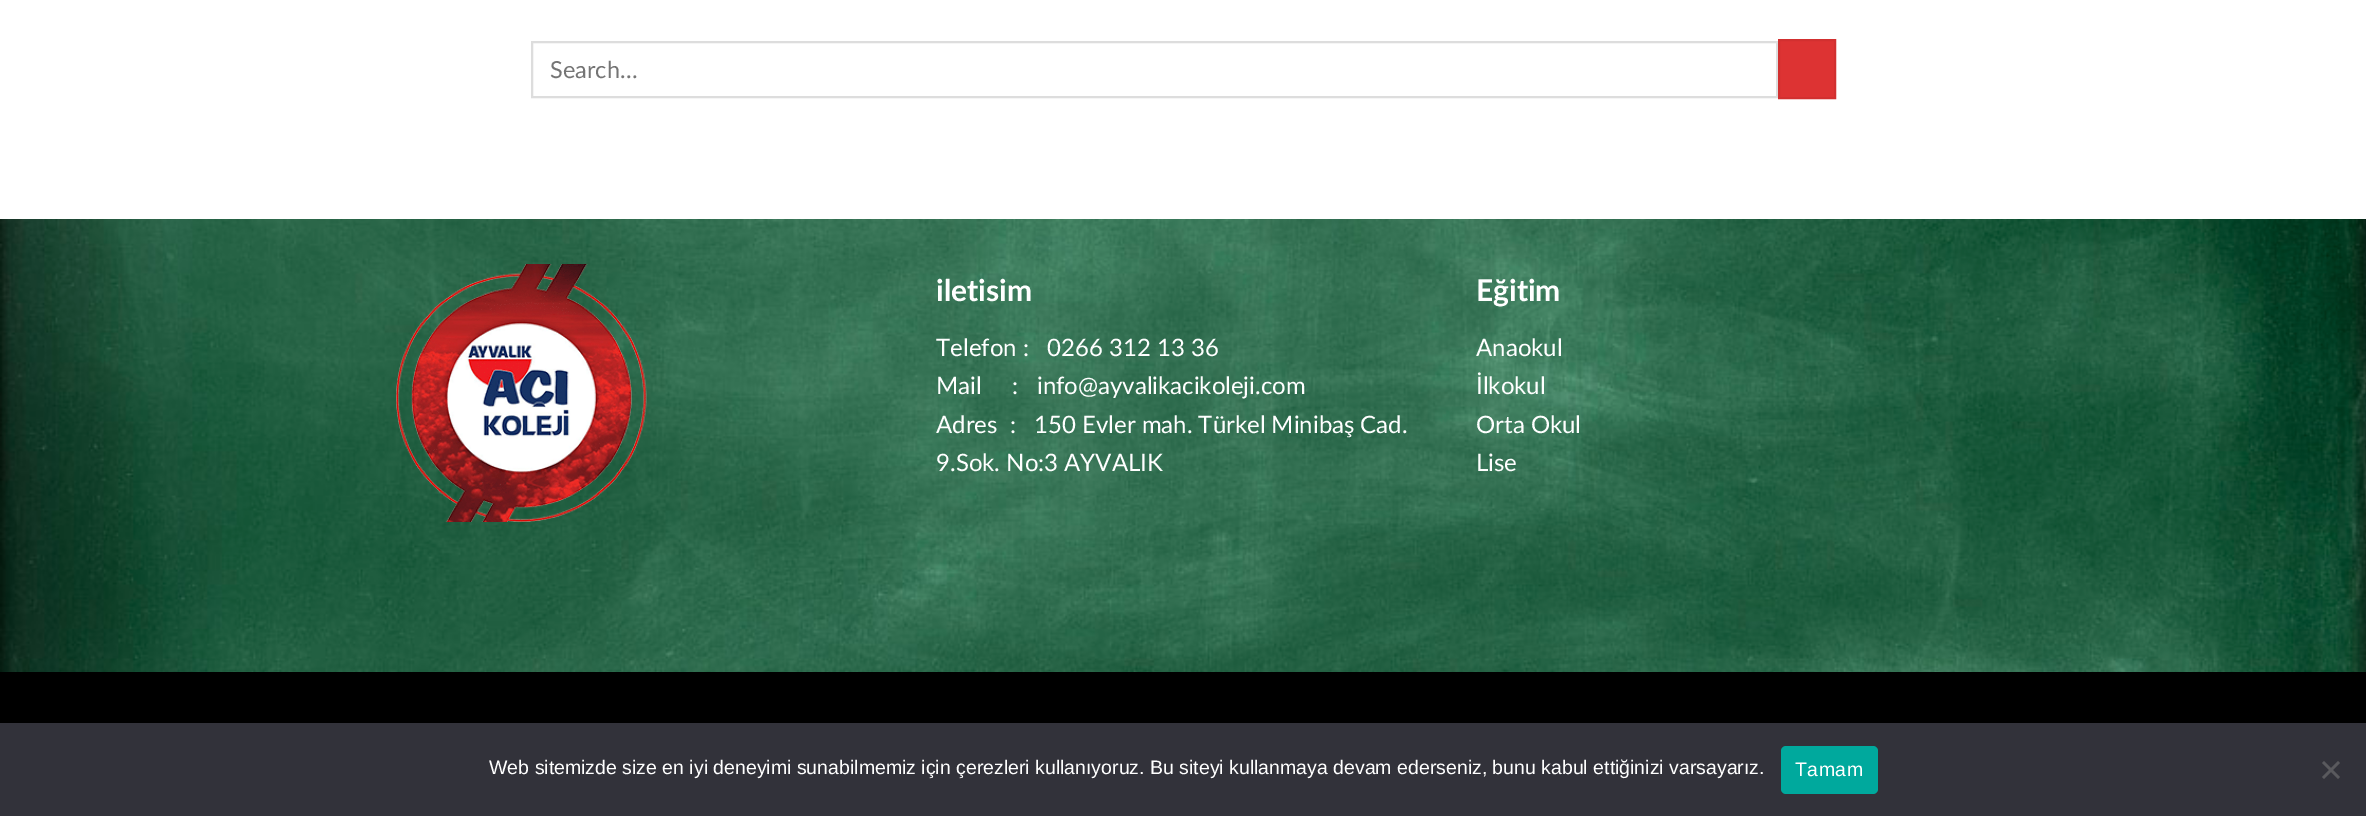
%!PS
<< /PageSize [2366 816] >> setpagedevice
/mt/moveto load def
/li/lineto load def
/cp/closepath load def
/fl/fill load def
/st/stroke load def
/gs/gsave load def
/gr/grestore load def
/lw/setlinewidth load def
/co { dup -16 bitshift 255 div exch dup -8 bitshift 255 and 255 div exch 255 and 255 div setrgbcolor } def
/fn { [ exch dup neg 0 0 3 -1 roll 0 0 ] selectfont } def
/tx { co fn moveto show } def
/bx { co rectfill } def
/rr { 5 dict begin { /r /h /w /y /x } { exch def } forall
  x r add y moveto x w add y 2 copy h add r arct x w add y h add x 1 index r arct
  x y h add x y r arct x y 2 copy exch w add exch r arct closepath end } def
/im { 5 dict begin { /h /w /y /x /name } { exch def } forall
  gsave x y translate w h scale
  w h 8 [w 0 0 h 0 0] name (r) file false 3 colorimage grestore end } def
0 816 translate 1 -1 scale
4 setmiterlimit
0 0 2366 816 16#FFFFFF bx
16#DDDDDD co
2 lw
532 42 1245 55 rectstroke
16#DD3333 co
1779 40 mt 1835 40 li 1835 98 li 1779 98 li cp gs fl gr
16#D23030 co
st
(media/1.raw) 0 219 2366 453 im
(media/2.raw) 396 264 251 258 im
0 672 2366 51 16#000000 bx
0 723 2366 93 16#32323A bx
16#00A99D co
1781 746 97 48 5 rr fl
16#59595D co
2338 761 mt 2340 763 li 2324 779 li 2322 777 li cp fl
2322 763 mt 2324 761 li 2340 777 li 2338 779 li cp fl
(Search…) 550 78 /Lato-Regular 23.5 16#757575 tx
(iletisim) 936 301 /Lato-Bold 30 16#FFFFFF tx
(Telefon :   0266 312 13 36) 936 356 /Lato-Regular 24 16#FFFFFF tx
(Mail     :   info@ayvalikacikoleji.com) 936 394 /Lato-Regular 24 16#FFFFFF tx
(Adres  :   150 Evler mah. Türkel Minibaş Cad.) 936 433 /Lato-Regular 24 16#FFFFFF tx
(9.Sok. No:3 AYVALIK) 936 471 /Lato-Regular 24 16#FFFFFF tx
(Eğitim) 1476 301 /Lato-Bold 30 16#FFFFFF tx
(Anaokul) 1476 356 /Lato-Regular 24 16#FFFFFF tx
(İlkokul) 1476 394 /Lato-Regular 24 16#FFFFFF tx
(Orta Okul) 1476 433 /Lato-Regular 24 16#FFFFFF tx
(Lise) 1476 471 /Lato-Regular 24 16#FFFFFF tx
(Web sitemizde size en iyi deneyimi sunabilmemiz için çerezleri kullanıyoruz. Bu siteyi kullanmaya devam ederseniz, bunu kabul ettiğinizi varsayarız.) 489 774 /LiberationSans-Regular 19.5 16#FFFFFF tx
1795 776 mt .5 0 (Tamam) ashow
showpage
